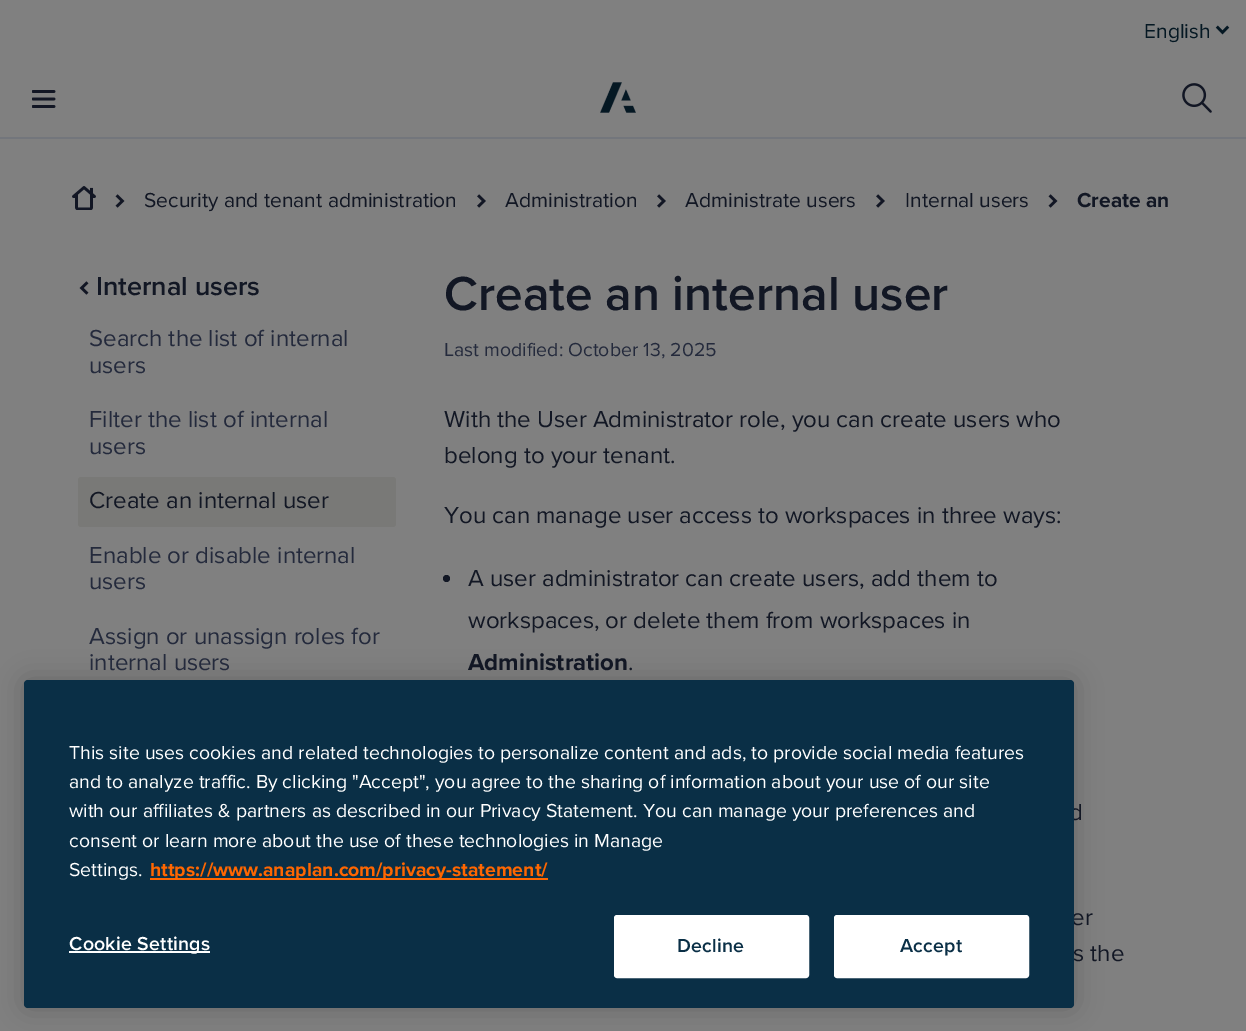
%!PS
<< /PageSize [1246 1031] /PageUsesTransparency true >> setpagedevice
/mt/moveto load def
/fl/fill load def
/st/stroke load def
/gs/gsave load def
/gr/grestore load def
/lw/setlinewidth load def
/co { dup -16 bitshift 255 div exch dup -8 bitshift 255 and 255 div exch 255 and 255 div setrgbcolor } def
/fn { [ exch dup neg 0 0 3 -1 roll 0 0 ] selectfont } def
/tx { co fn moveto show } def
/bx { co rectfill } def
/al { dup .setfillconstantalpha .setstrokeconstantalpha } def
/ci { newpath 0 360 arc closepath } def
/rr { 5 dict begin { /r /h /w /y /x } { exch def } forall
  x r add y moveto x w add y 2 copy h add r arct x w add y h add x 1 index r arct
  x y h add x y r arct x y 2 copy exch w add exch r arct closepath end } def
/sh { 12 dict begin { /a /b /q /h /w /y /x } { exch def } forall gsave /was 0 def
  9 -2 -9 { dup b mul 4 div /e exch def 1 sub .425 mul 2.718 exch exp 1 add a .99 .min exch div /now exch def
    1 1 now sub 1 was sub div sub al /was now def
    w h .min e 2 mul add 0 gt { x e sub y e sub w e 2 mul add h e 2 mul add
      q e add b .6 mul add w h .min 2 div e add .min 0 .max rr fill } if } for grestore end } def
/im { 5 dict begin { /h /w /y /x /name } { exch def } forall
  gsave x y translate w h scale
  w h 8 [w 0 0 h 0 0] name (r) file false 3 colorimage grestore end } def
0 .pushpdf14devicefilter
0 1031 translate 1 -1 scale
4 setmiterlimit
0 0 1246 1031 16#808080 bx
(media/1.raw) 1215 25 15 10 im
0 137 1246 2 16#73767C bx
(media/2.raw) 32 90 24 18 im
(media/3.raw) 600 82 36 31 im
(media/4.raw) 1182 83 30 30 im
(media/5.raw) 72 186 24 24 im
(media/6.raw) 115 194 10 14 im
(media/7.raw) 477 194 9 14 im
(media/7.raw) 657 194 9 14 im
(media/7.raw) 876 194 9 14 im
(media/6.raw) 1048 194 10 14 im
(media/8.raw) 79 281 10 14 im
16#797977 co
78 477 318 50 3 rr fl
16#121724 co
446.5 578.5 3.5 ci fl
16#000000 co
24 680 1050 328 4 13.5 .2 sh
(English) 1144 38 /ProximaNova-Regular 21 16#051823 tx
(Security and tenant administration) 144 207 /ProximaNova-Regular 21 16#121724 tx
(Administration) 505 207 /ProximaNova-Regular 21 16#121724 tx
(Administrate users) 685 207 /ProximaNova-Regular 21 16#121724 tx
(Internal users) 905 207 /ProximaNova-Regular 21 16#121724 tx
(Create an) 1077 207 /ProximaNova-Bold 21 16#121724 tx
(Internal users) 96 295 /ProximaNova-SemiBold 27 16#121724 tx
(Search the list of internal) 89 346 /ProximaNova-Regular 24 16#242A3C tx
(users) 89 373 /ProximaNova-Regular 24 16#242A3C tx
(Filter the list of internal) 89 427 /ProximaNova-Regular 24 16#242A3C tx
(users) 89 454 /ProximaNova-Regular 24 16#242A3C tx
(Create an internal user) 89 508 /ProximaNova-Regular 24 16#121724 tx
(Enable or disable internal) 89 563 /ProximaNova-Regular 24 16#242A3C tx
(users) 89 589 /ProximaNova-Regular 24 16#242A3C tx
(Assign or unassign roles for) 89 644 /ProximaNova-Regular 24 16#242A3C tx
(internal users) 89 670 /ProximaNova-Regular 24 16#242A3C tx
(Create an internal user) 444 310 /ProximaNova-SemiBold 49.5 16#121724 tx
(Last modified: October 13, 2025) 444 356 /ProximaNova-Regular 19.5 16#242A3C tx
(With the User Administrator role, you can create users who) 444 427 /ProximaNova-Regular 24 16#121724 tx
(belong to your tenant.) 444 463 /ProximaNova-Regular 24 16#121724 tx
(You can manage user access to workspaces in three ways:) 444 523 /ProximaNova-Regular 24 16#121724 tx
(A user administrator can create users, add them to) 468 586 /ProximaNova-Regular 24 16#121724 tx
(workspaces, or delete them from workspaces in) 468 628 /ProximaNova-Regular 24 16#121724 tx
(Administration) 468 670 /ProximaNova-Bold 24 16#121724 tx
(.) 628 670 /ProximaNova-Regular 24 16#121724 tx
(d) 1069 820 /ProximaNova-Regular 24 16#121724 tx
(er) 1071 925 /ProximaNova-Regular 24 16#121724 tx
(s the) 1073 961 /ProximaNova-Regular 24 16#121724 tx
16#0A2F46 co
24 680 1050 328 4 rr fl
(This site uses cookies and related technologies to personalize content and ads, to provide social media features) 69 759 /ProximaNova-Regular 19.5 16#FFFFFF tx
(and to analyze traffic. By clicking "Accept", you agree to the sharing of information about your use of our site) 69 788 /ProximaNova-Regular 19.5 16#FFFFFF tx
(with our affiliates & partners as described in our Privacy Statement. You can manage your preferences and) 69 817 /ProximaNova-Regular 19.5 16#FFFFFF tx
(consent or learn more about the use of these technologies in Manage) 69 847 /ProximaNova-Regular 19.5 16#FFFFFF tx
(Settings.) 69 876 /ProximaNova-Regular 19.5 16#FFFFFF tx
150 878 398 2 16#FF6600 bx
(https://www.anaplan.com/privacy-statement/) 150 876 /ProximaNova-Bold 19.5 16#FF6600 tx
69 951 141 2 16#FFFFFF bx
/ProximaNova-SemiBold 19.5 fn
69 950 mt .25 0 (Cookie Settings) ashow
615 916 193 61 2 rr gs fl gr
2 lw
st
16#0A2F46 co
677 952 mt .25 0 (Decline) ashow
16#FFFFFF co
835 916 193 61 2 rr gs fl gr
st
16#0A2F46 co
900 952 mt .25 0 (Accept) ashow
.poppdf14devicefilter showpage
